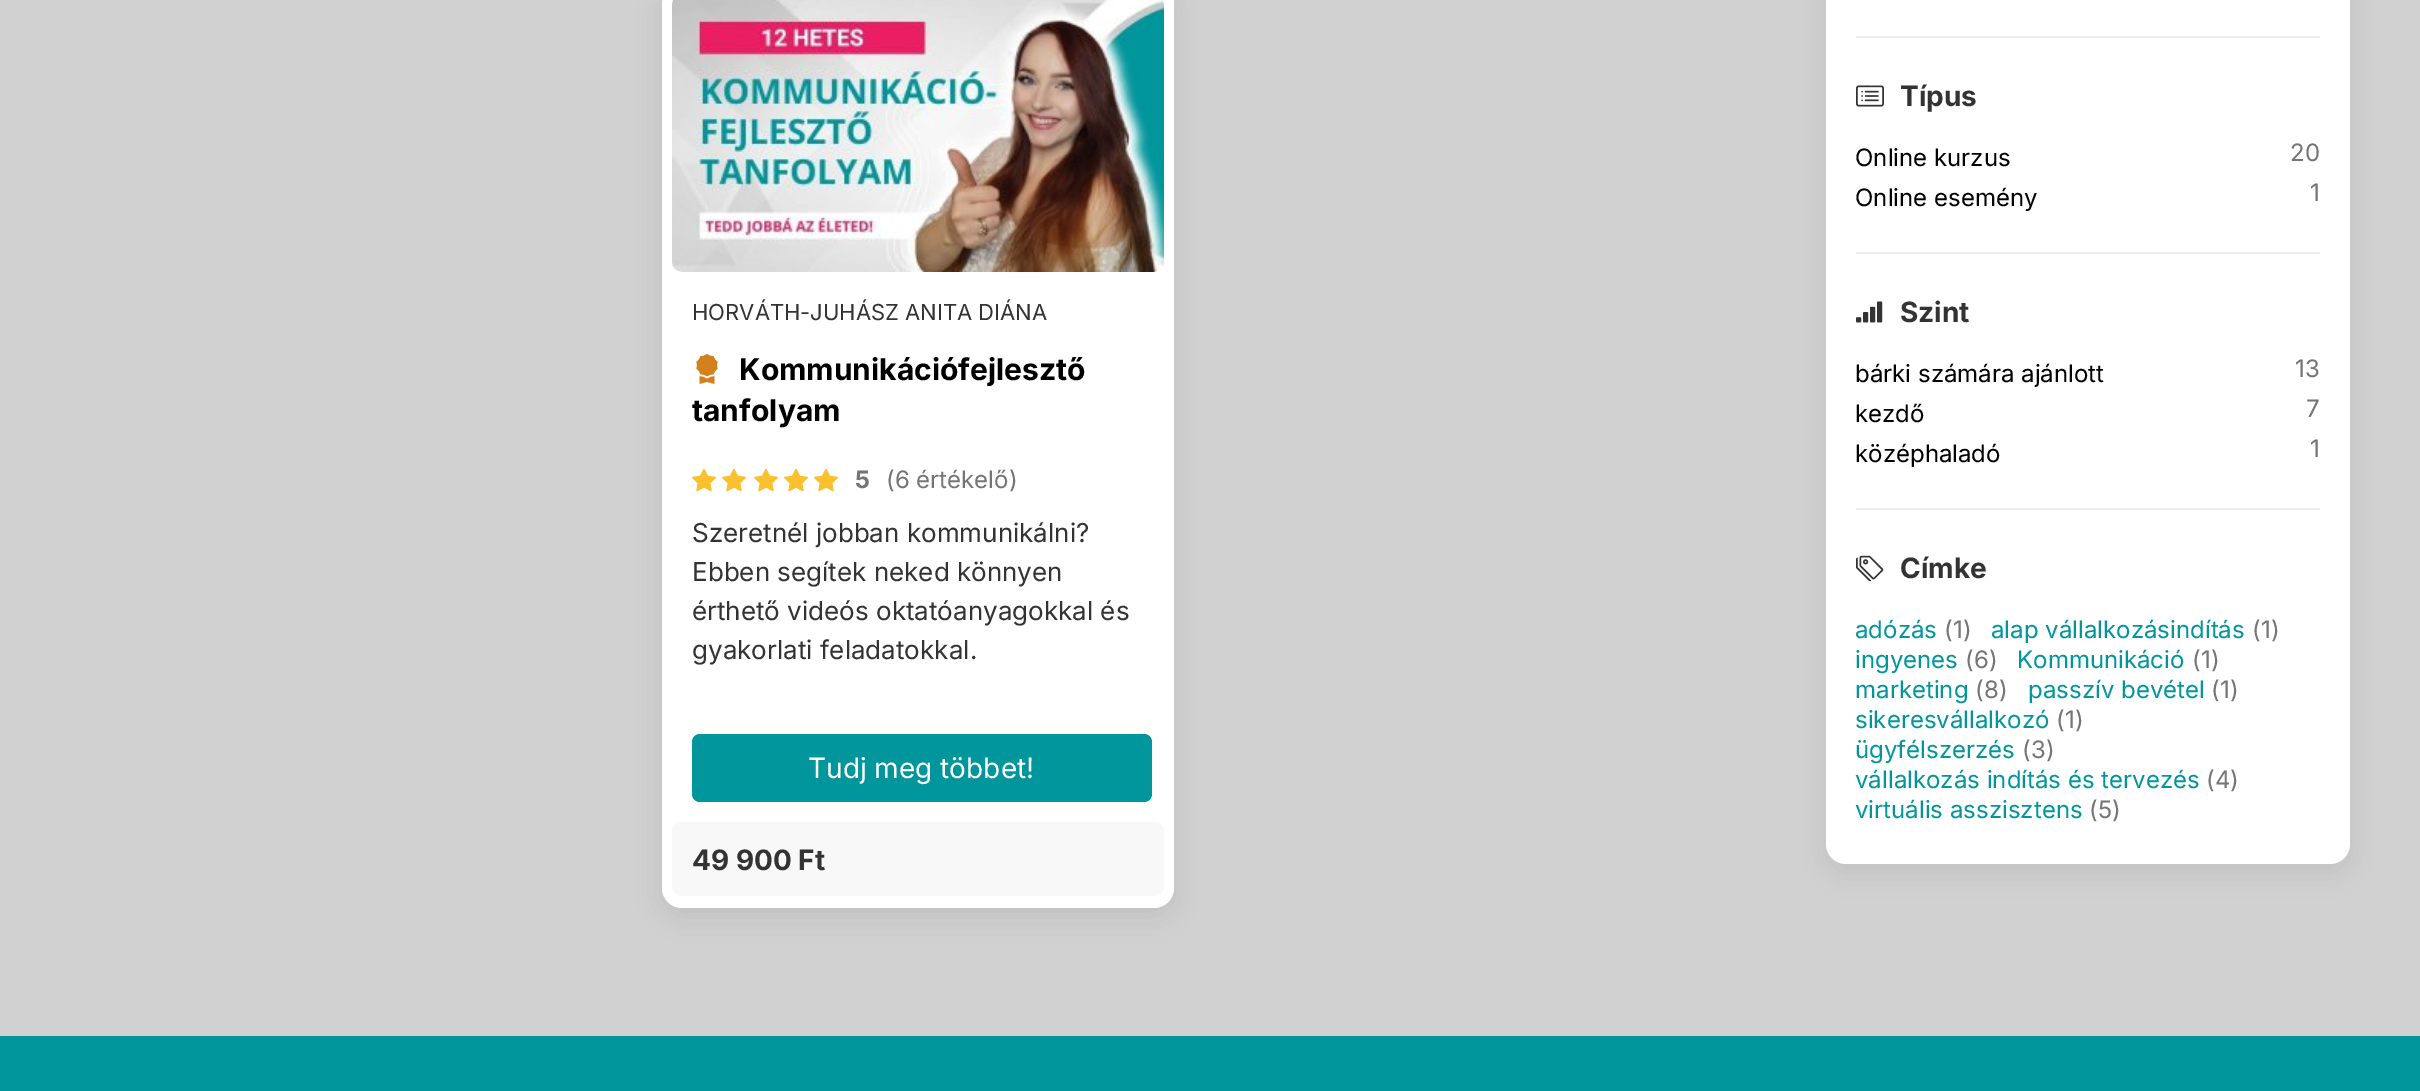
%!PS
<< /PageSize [2420 1091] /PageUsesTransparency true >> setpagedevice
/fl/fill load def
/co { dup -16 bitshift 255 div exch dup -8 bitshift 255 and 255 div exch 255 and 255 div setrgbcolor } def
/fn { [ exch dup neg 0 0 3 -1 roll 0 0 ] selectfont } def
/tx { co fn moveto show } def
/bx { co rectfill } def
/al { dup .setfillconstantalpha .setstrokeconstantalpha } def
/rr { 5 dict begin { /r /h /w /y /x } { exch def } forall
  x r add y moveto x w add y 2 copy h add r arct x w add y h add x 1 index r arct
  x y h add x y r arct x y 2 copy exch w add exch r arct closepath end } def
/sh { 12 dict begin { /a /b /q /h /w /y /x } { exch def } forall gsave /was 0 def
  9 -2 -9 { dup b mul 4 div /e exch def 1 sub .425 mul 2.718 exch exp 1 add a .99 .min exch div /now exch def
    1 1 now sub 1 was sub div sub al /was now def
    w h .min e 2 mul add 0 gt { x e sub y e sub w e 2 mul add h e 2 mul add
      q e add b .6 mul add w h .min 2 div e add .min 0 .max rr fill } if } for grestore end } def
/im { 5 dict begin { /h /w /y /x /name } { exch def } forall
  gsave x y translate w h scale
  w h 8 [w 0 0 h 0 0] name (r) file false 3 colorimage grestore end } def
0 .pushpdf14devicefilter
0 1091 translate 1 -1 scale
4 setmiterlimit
0 0 2420 1091 16#D1D1D1 bx
16#000000 co
662 -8 512 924 20 12 .08 sh
16#FFFFFF co
662 -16 512 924 20 rr fl
(media/1.raw) 672 0 492 272 im
(media/2.raw) 696 354 22 30 im
(media/3.raw) 692 468 24 24 im
(media/3.raw) 722 468 24 24 im
(media/3.raw) 754 468 24 24 im
(media/3.raw) 784 468 24 24 im
(media/3.raw) 814 468 24 24 im
16#00969C co
692 734 460 68 8 rr fl
16#F8F8F8 co
672 822 492 74 10 rr fl
16#000000 co
1826 -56 524 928 20 12 .08 sh
16#FFFFFF co
1826 -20 524 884 20 rr fl
1856 36 464 2 16#EEEEEE bx
(media/4.raw) 1856 85 28 22 im
1856 252 464 2 16#EEEEEE bx
(media/5.raw) 1856 301 27 22 im
1856 508 464 2 16#EEEEEE bx
(media/6.raw) 1856 555 28 27 im
0 1036 2420 55 16#00969C bx
(HORVÁTH-JUHÁSZ ANITA DIÁNA) 692 320 /Inter-Regular 22 16#333333 tx
(Kommunikációfejlesztő) 739 380 /Inter-Bold 30 16#000000 tx
(tanfolyam) 692 421 /Inter-Bold 30 16#000000 tx
(5) 855 488 /Inter-Bold 24 16#757575 tx
(\(6 értékelő\)) 886 488 /Inter-Regular 24 16#757575 tx
(Szeretnél jobban kommunikálni?) 692 542 /Inter-Regular 26 16#333333 tx
(Ebben segítek neked könnyen) 692 581 /Inter-Regular 26 16#333333 tx
(érthető videós oktatóanyagokkal és) 692 620 /Inter-Regular 26 16#333333 tx
(gyakorlati feladatokkal.) 692 659 /Inter-Regular 26 16#333333 tx
(Tudj meg többet!) 808 778 /Inter-Regular 28 16#FFFFFF tx
(49 900 Ft) 692 870 /Inter-Bold 28 16#333333 tx
(Típus) 1900 106 /Inter-Bold 28 16#333333 tx
(Online kurzus) 1855 166 /Inter-Regular 24 16#000000 tx
(20) 2290 161 /Inter-Regular 24 16#757575 tx
(Online esemény) 1855 206 /Inter-Regular 24 16#000000 tx
(1) 2310 201 /Inter-Regular 24 16#757575 tx
(Szint) 1900 322 /Inter-Bold 28 16#333333 tx
(bárki számára ajánlott) 1855 382 /Inter-Regular 24 16#000000 tx
(13) 2295 377 /Inter-Regular 24 16#757575 tx
(kezdő) 1855 422 /Inter-Regular 24 16#000000 tx
(7) 2306 417 /Inter-Regular 24 16#757575 tx
(középhaladó) 1855 462 /Inter-Regular 24 16#000000 tx
(1) 2310 457 /Inter-Regular 24 16#757575 tx
(Címke) 1900 578 /Inter-Bold 28 16#333333 tx
(adózás) 1855 638 /Inter-Regular 24 16#00969C tx
(\(1\)) 1944 638 /Inter-Regular 24 16#757575 tx
(alap vállalkozásindítás) 1991 638 /Inter-Regular 24 16#00969C tx
(\(1\)) 2252 638 /Inter-Regular 24 16#757575 tx
(ingyenes) 1855 668 /Inter-Regular 24 16#00969C tx
(\(6\)) 1965 668 /Inter-Regular 24 16#757575 tx
(Kommunikáció) 2017 668 /Inter-Regular 24 16#00969C tx
(\(1\)) 2192 668 /Inter-Regular 24 16#757575 tx
(marketing) 1855 698 /Inter-Regular 24 16#00969C tx
(\(8\)) 1975 698 /Inter-Regular 24 16#757575 tx
(passzív bevétel) 2028 698 /Inter-Regular 24 16#00969C tx
(\(1\)) 2211 698 /Inter-Regular 24 16#757575 tx
(sikeresvállalkozó) 1855 728 /Inter-Regular 24 16#00969C tx
(\(1\)) 2056 728 /Inter-Regular 24 16#757575 tx
(ügyfélszerzés) 1855 758 /Inter-Regular 24 16#00969C tx
(\(3\)) 2022 758 /Inter-Regular 24 16#757575 tx
(vállalkozás indítás és tervezés) 1855 788 /Inter-Regular 24 16#00969C tx
(\(4\)) 2206 788 /Inter-Regular 24 16#757575 tx
(virtuális asszisztens) 1855 818 /Inter-Regular 24 16#00969C tx
(\(5\)) 2089 818 /Inter-Regular 24 16#757575 tx
.poppdf14devicefilter showpage
